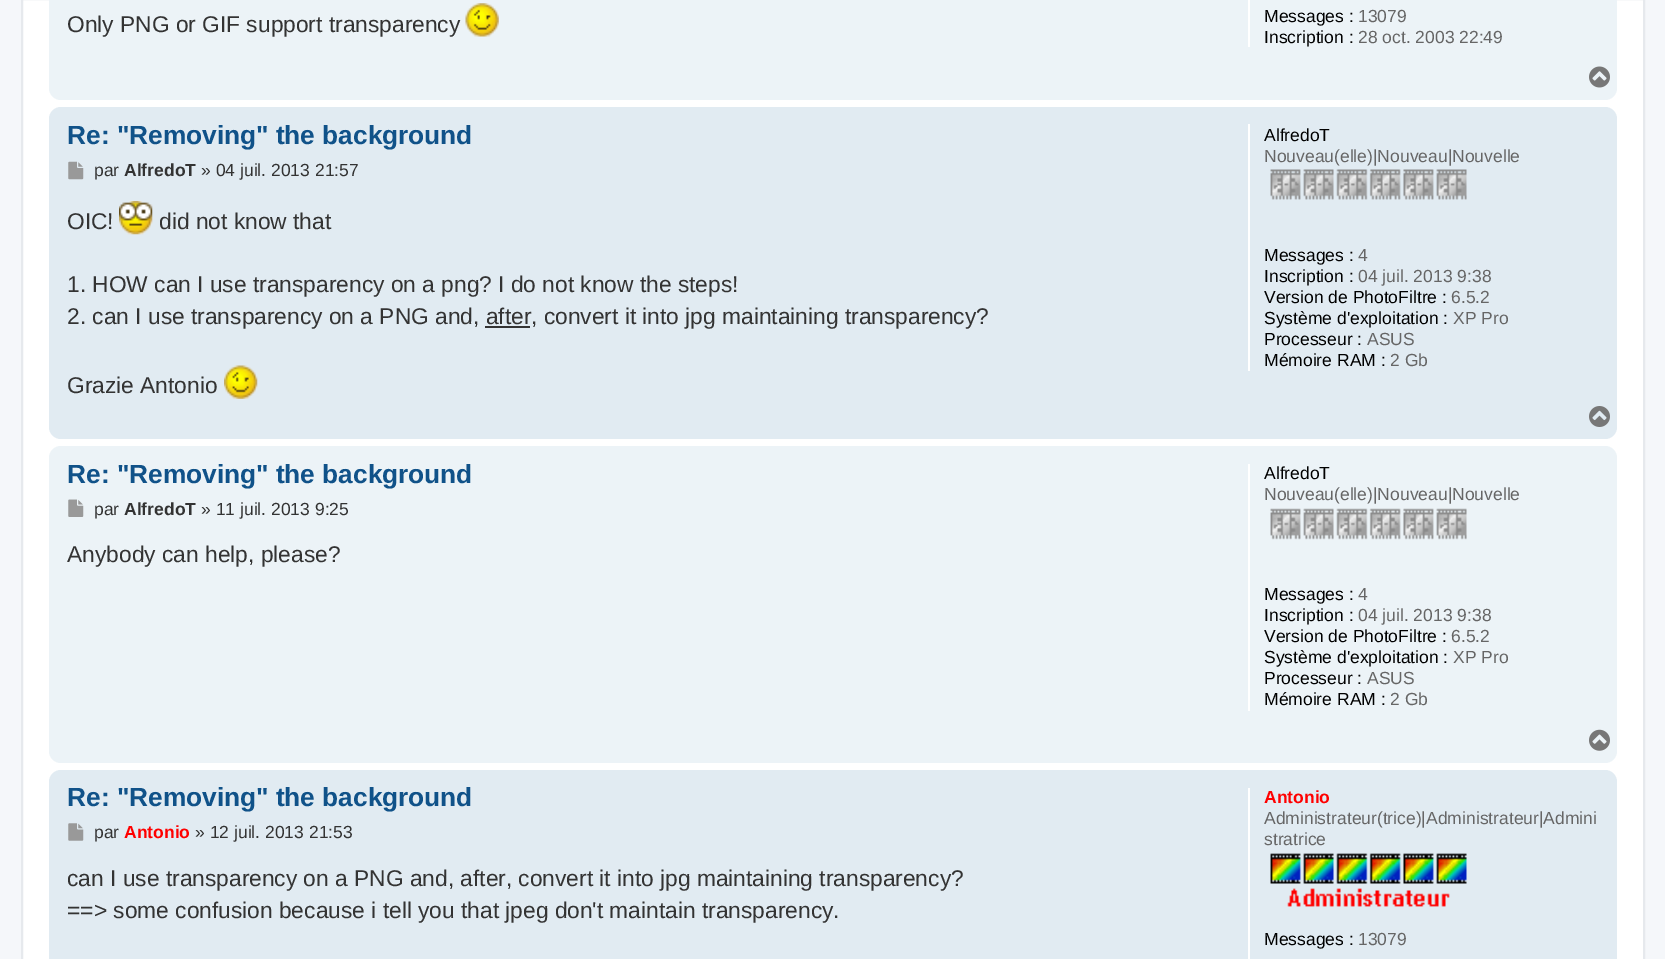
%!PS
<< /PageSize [1665 959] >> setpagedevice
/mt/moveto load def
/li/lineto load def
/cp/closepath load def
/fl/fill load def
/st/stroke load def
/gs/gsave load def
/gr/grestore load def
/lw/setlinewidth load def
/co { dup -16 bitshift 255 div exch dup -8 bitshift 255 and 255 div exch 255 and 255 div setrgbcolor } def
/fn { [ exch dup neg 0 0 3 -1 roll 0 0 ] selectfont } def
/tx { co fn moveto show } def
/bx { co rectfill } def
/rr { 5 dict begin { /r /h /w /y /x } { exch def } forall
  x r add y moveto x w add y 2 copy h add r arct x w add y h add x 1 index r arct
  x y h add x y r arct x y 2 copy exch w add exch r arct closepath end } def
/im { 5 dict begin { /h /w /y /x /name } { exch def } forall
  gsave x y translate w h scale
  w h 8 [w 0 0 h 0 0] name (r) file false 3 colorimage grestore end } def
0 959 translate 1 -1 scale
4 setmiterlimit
0 0 1665 959 16#F5F7FA bx
16#FFFFFF co
22 -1 mt 1644 -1 li 1644 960 li 22 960 li cp gs fl gr
16#E6E9ED co
2 lw
st
16#ECF3F7 co
49 -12 1568 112 12 rr fl
(media/1.raw) 465 3 34 34 im
1248 0 2 47 16#FFFFFF bx
(media/2.raw) 1589 66 21 22 im
16#E1EBF2 co
49 107 1568 332 12 rr fl
(media/3.raw) 68 161 16 19 im
(media/4.raw) 119 201 34 34 im
485 326 45 2 16#333333 bx
(media/5.raw) 224 365 34 34 im
1248 124 2 247 16#FFFFFF bx
(media/6.raw) 1270 169 197 31 im
(media/7.raw) 1589 406 21 21 im
16#ECF3F7 co
49 446 1568 317 12 rr fl
(media/8.raw) 68 499 16 18 im
1248 464 2 247 16#FFFFFF bx
(media/9.raw) 1270 508 197 32 im
(media/10.raw) 1589 729 21 22 im
16#E1EBF2 co
49 770 1568 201 12 rr fl
(media/11.raw) 68 823 16 18 im
1248 788 2 171 16#FFFFFF bx
(media/12.raw) 1270 853 197 54 im
(Only PNG or GIF support transparency) 67 32 /LiberationSans-Regular 22.75 16#333333 tx
(Messages :) 1264 22 /LiberationSans-Regular 17.5 16#000000 tx
(13079) 1358 22 /LiberationSans-Regular 17.5 16#666666 tx
(Inscription :) 1264 43 /LiberationSans-Regular 17.5 16#000000 tx
(28 oct. 2003 22:49) 1358 43 /LiberationSans-Regular 17.5 16#666666 tx
(Re: "Removing" the background) 67 144 /LiberationSans-Bold 26.25 16#105289 tx
(par) 94 176 /LiberationSans-Regular 17.5 16#333333 tx
(AlfredoT) 124 176 /LiberationSans-Bold 17.5 16#333333 tx
(» 04 juil. 2013 21:57) 201 176 /LiberationSans-Regular 17.5 16#333333 tx
(OIC!) 67 229 /LiberationSans-Regular 22.75 16#333333 tx
(did not know that) 159 229 /LiberationSans-Regular 22.75 16#333333 tx
(1. HOW can I use transparency on a png? I do not know the steps!) 67 292 /LiberationSans-Regular 22.75 16#333333 tx
(2. can I use transparency on a PNG and, after, convert it into jpg maintaining transparency?) 67 324 /LiberationSans-Regular 22.75 16#333333 tx
(Grazie Antonio) 67 393 /LiberationSans-Regular 22.75 16#333333 tx
(AlfredoT) 1264 141 /LiberationSans-Regular 17.5 16#000000 tx
(Nouveau\(elle\)|Nouveau|Nouvelle) 1264 162 /LiberationSans-Regular 17.5 16#666666 tx
(Messages :) 1264 261 /LiberationSans-Regular 17.5 16#000000 tx
(4) 1358 261 /LiberationSans-Regular 17.5 16#666666 tx
(Inscription :) 1264 282 /LiberationSans-Regular 17.5 16#000000 tx
(04 juil. 2013 9:38) 1358 282 /LiberationSans-Regular 17.5 16#666666 tx
(Version de PhotoFiltre :) 1264 303 /LiberationSans-Regular 17.5 16#000000 tx
(6.5.2) 1451 303 /LiberationSans-Regular 17.5 16#666666 tx
(Système d'exploitation :) 1264 324 /LiberationSans-Regular 17.5 16#000000 tx
(XP Pro) 1453 324 /LiberationSans-Regular 17.5 16#666666 tx
(Processeur :) 1264 345 /LiberationSans-Regular 17.5 16#000000 tx
(ASUS) 1367 345 /LiberationSans-Regular 17.5 16#666666 tx
(Mémoire RAM :) 1264 366 /LiberationSans-Regular 17.5 16#000000 tx
(2 Gb) 1390 366 /LiberationSans-Regular 17.5 16#666666 tx
(Re: "Removing" the background) 67 483 /LiberationSans-Bold 26.25 16#105289 tx
(par) 94 515 /LiberationSans-Regular 17.5 16#333333 tx
(AlfredoT) 124 515 /LiberationSans-Bold 17.5 16#333333 tx
(» 11 juil. 2013 9:25) 201 515 /LiberationSans-Regular 17.5 16#333333 tx
(Anybody can help, please?) 67 562 /LiberationSans-Regular 22.75 16#333333 tx
(AlfredoT) 1264 479 /LiberationSans-Regular 17.5 16#000000 tx
(Nouveau\(elle\)|Nouveau|Nouvelle) 1264 500 /LiberationSans-Regular 17.5 16#666666 tx
(Messages :) 1264 600 /LiberationSans-Regular 17.5 16#000000 tx
(4) 1358 600 /LiberationSans-Regular 17.5 16#666666 tx
(Inscription :) 1264 621 /LiberationSans-Regular 17.5 16#000000 tx
(04 juil. 2013 9:38) 1358 621 /LiberationSans-Regular 17.5 16#666666 tx
(Version de PhotoFiltre :) 1264 642 /LiberationSans-Regular 17.5 16#000000 tx
(6.5.2) 1451 642 /LiberationSans-Regular 17.5 16#666666 tx
(Système d'exploitation :) 1264 663 /LiberationSans-Regular 17.5 16#000000 tx
(XP Pro) 1453 663 /LiberationSans-Regular 17.5 16#666666 tx
(Processeur :) 1264 684 /LiberationSans-Regular 17.5 16#000000 tx
(ASUS) 1367 684 /LiberationSans-Regular 17.5 16#666666 tx
(Mémoire RAM :) 1264 705 /LiberationSans-Regular 17.5 16#000000 tx
(2 Gb) 1390 705 /LiberationSans-Regular 17.5 16#666666 tx
(Re: "Removing" the background) 67 806 /LiberationSans-Bold 26.25 16#105289 tx
(par) 94 838 /LiberationSans-Regular 17.5 16#333333 tx
(Antonio) 124 838 /LiberationSans-Bold 17.5 16#FF0000 tx
(» 12 juil. 2013 21:53) 195 838 /LiberationSans-Regular 17.5 16#333333 tx
(can I use transparency on a PNG and, after, convert it into jpg maintaining transparency?) 67 886 /LiberationSans-Regular 22.75 16#333333 tx
(==> some confusion because i tell you that jpeg don't maintain transparency.) 67 918 /LiberationSans-Regular 22.75 16#333333 tx
(Antonio) 1264 803 /LiberationSans-Bold 17.5 16#FF0000 tx
(Administrateur\(trice\)|Administrateur|Admini) 1264 824 /LiberationSans-Regular 17.5 16#666666 tx
(stratrice) 1264 845 /LiberationSans-Regular 17.5 16#666666 tx
(Messages :) 1264 945 /LiberationSans-Regular 17.5 16#000000 tx
(13079) 1358 945 /LiberationSans-Regular 17.5 16#666666 tx
showpage
